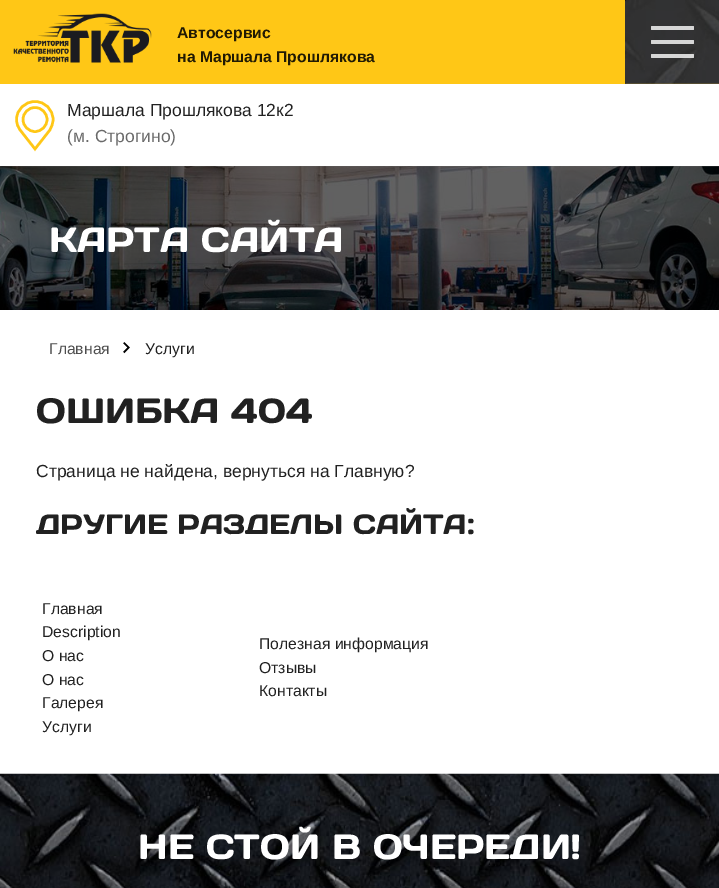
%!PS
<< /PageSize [719 888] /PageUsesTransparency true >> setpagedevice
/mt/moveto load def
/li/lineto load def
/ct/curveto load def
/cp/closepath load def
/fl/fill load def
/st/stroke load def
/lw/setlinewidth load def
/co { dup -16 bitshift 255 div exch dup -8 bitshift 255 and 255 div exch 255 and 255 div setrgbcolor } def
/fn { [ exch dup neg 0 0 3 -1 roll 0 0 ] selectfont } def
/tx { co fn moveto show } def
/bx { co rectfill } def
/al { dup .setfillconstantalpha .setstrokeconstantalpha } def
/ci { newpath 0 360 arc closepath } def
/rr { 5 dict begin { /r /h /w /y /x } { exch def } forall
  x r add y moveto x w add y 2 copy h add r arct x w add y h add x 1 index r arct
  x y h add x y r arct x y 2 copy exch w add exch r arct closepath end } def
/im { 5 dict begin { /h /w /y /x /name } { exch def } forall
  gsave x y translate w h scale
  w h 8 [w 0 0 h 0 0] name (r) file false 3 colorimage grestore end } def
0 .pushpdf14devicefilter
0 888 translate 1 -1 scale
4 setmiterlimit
0 0 719 888 16#FFFFFF bx
0 0 719 84 16#FFC716 bx
(media/1.raw) 13 13 139 50 im
(media/2.raw) 625 0 94 84 im
0.4 al
16#666666 co
625 0 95 84 2.5 rr fl
1 al
16#D6D6D6 co
651 26 43 4 1 rr fl
0.8 al
16#FFFFFF co
651 40 43 4 1 rr fl
651 54 43 4 1 rr fl
1 al
16#FFC716 co
2.5 lw
53 119.5 mt 53 109.5 45 101.5 35 101.5 ct 25 101.5 16.5 109.5 16.5 119.5 ct 16.5 123.5 18 127.5 20.5 130.5 ct 35 149 li 49.5 130.5 li 51.5 127.5 53 123.5 53 119.5 ct cp st
35 119.5 12 ci st
(media/3.raw) 0 166 719 144 im
(media/4.raw) 123 342 7 12 im
(media/5.raw) 0 773 719 115 im
(Автосервис) 177 38 /LiberationSans-Bold 15.75 16#211A03 tx
(на Маршала Прошлякова) 177 62 /LiberationSans-Bold 15.75 16#211A03 tx
(Маршала Прошлякова 12к2) 67 116 /LiberationSans-Regular 17.5 16#212121 tx
(\(м. Строгино\)) 67 142 /LiberationSans-Regular 17.5 16#6A6A6A tx
(КАРТА САЙТА) 49 252 /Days-Regular 35 16#FFFFFF tx
(Главная) 49 354 /LiberationSans-Regular 15.75 16#4E4E4E tx
(Услуги) 145 354 /LiberationSans-Regular 15.75 16#212121 tx
(ОШИБКА 404) 36 423 /Days-Regular 35 16#212121 tx
(Страница не найдена, вернуться на Главную?) 36 477 /LiberationSans-Regular 17.5 16#212121 tx
(ДРУГИЕ РАЗДЕЛЫ САЙТА:) 36 534 /Days-Regular 28 16#212121 tx
(Главная) 42 614 /LiberationSans-Regular 15.75 16#212121 tx
(Description) 42 637 /LiberationSans-Regular 15.75 16#212121 tx
(О нас) 42 661 /LiberationSans-Regular 15.75 16#212121 tx
(О нас) 42 685 /LiberationSans-Regular 15.75 16#212121 tx
(Галерея) 42 708 /LiberationSans-Regular 15.75 16#212121 tx
(Услуги) 42 732 /LiberationSans-Regular 15.75 16#212121 tx
(Полезная информация) 259 649 /LiberationSans-Regular 15.75 16#212121 tx
(Отзывы) 259 673 /LiberationSans-Regular 15.75 16#212121 tx
(Контакты) 259 696 /LiberationSans-Regular 15.75 16#212121 tx
(НЕ СТОЙ В ОЧЕРЕДИ!) 138 859 /Days-Regular 35 16#FFFFFF tx
.poppdf14devicefilter showpage
